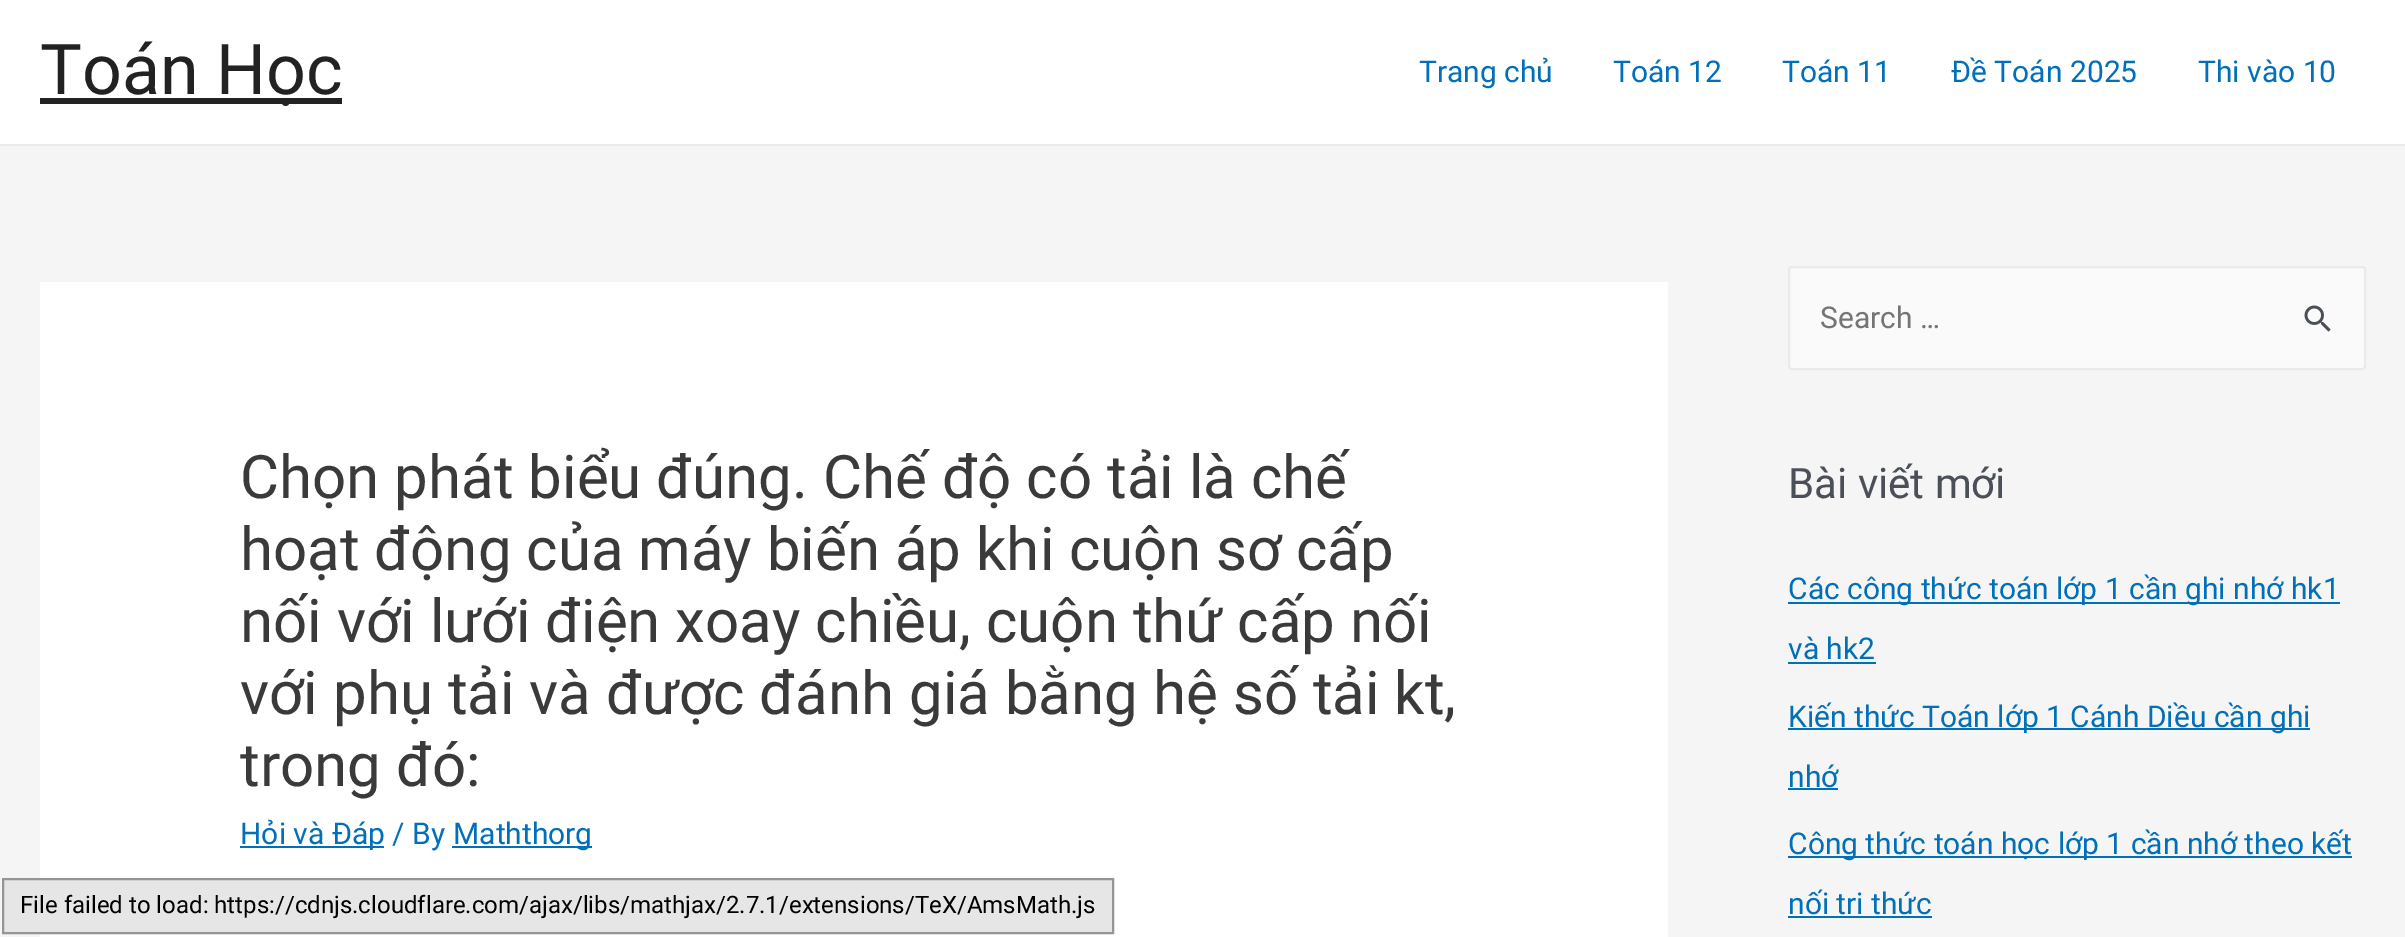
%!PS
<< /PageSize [2405 937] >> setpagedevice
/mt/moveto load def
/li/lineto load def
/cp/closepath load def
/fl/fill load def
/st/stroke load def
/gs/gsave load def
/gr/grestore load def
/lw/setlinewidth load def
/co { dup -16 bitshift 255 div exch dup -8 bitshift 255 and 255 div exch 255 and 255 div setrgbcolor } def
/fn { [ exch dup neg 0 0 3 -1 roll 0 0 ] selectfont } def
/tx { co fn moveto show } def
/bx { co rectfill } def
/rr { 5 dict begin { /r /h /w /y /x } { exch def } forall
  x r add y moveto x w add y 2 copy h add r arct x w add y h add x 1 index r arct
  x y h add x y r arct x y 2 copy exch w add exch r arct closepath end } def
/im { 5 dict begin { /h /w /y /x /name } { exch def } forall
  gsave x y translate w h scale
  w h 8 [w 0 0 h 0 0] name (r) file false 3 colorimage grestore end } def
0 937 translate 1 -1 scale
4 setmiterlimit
0 0 2405 937 16#F5F5F5 bx
0 0 2405 144 16#FFFFFF bx
0 144 2405 2 16#EAEAEA bx
40 98 302 6 16#222222 bx
40 282 1628 655 16#FFFFFF bx
240 846 144 2 16#0170B9 bx
452 846 140 2 16#0170B9 bx
16#FAFAFA co
1789 267 576 102 3 rr gs fl gr
16#EAEAEA co
2 lw
st
(media/1.raw) 2304 305 27 27 im
1788 602 552 2 16#0170B9 bx
1788 662 88 2 16#0170B9 bx
1788 728 522 2 16#0170B9 bx
1788 788 50 2 16#0170B9 bx
1788 856 564 2 16#0170B9 bx
1788 916 144 2 16#0170B9 bx
16#E6E6E6 co
3 879 mt 1113 879 li 1113 933 li 3 933 li cp gs fl gr
16#959595 co
st
(Toán Học) 40 94 /Roboto-Regular 70 16#222222 tx
(Trang chủ) 1419 82 /Roboto-Regular 30 16#0170B9 tx
(Toán 12) 1613 82 /Roboto-Regular 30 16#0170B9 tx
(Toán 11) 1782 82 /Roboto-Regular 30 16#0170B9 tx
(Đề Toán 2025) 1951 82 /Roboto-Regular 30 16#0170B9 tx
(Thi vào 10) 2198 82 /Roboto-Regular 30 16#0170B9 tx
(Chọn phát biểu đúng. Chế độ có tải là chế) 240 498 /Roboto-Regular 60 16#3A3A3A tx
(hoạt động của máy biến áp khi cuộn sơ cấp) 240 570 /Roboto-Regular 60 16#3A3A3A tx
(nối với lưới điện xoay chiều, cuộn thứ cấp nối) 240 642 /Roboto-Regular 60 16#3A3A3A tx
(với phụ tải và được đánh giá bằng hệ số tải kt,) 240 714 /Roboto-Regular 60 16#3A3A3A tx
(trong đó:) 240 786 /Roboto-Regular 60 16#3A3A3A tx
(Hỏi và Đáp / By) 240 844 /Roboto-Regular 30 16#0170B9 tx
(Maththorg) 453 844 /Roboto-Regular 30 16#0170B9 tx
(Search …) 1820 328 /Roboto-Regular 30 16#757575 tx
(Bài viết mới) 1788 498 /Roboto-Regular 42 16#4B4F58 tx
(Các công thức toán lớp 1 cần ghi nhớ hk1) 1788 599 /Roboto-Regular 30 16#0170B9 tx
(và hk2) 1788 659 /Roboto-Regular 30 16#0170B9 tx
(Kiến thức Toán lớp 1 Cánh Diều cần ghi) 1788 727 /Roboto-Regular 30 16#0170B9 tx
(nhớ) 1788 787 /Roboto-Regular 30 16#0170B9 tx
(Công thức toán học lớp 1 cần nhớ theo kết) 1788 854 /Roboto-Regular 30 16#0170B9 tx
(nối tri thức) 1788 914 /Roboto-Regular 30 16#0170B9 tx
(File failed to load: https://cdnjs.cloudflare.com/ajax/libs/mathjax/2.7.1/extensions/TeX/AmsMath.js) 20 913 /Roboto-Regular 24 16#000000 tx
showpage
